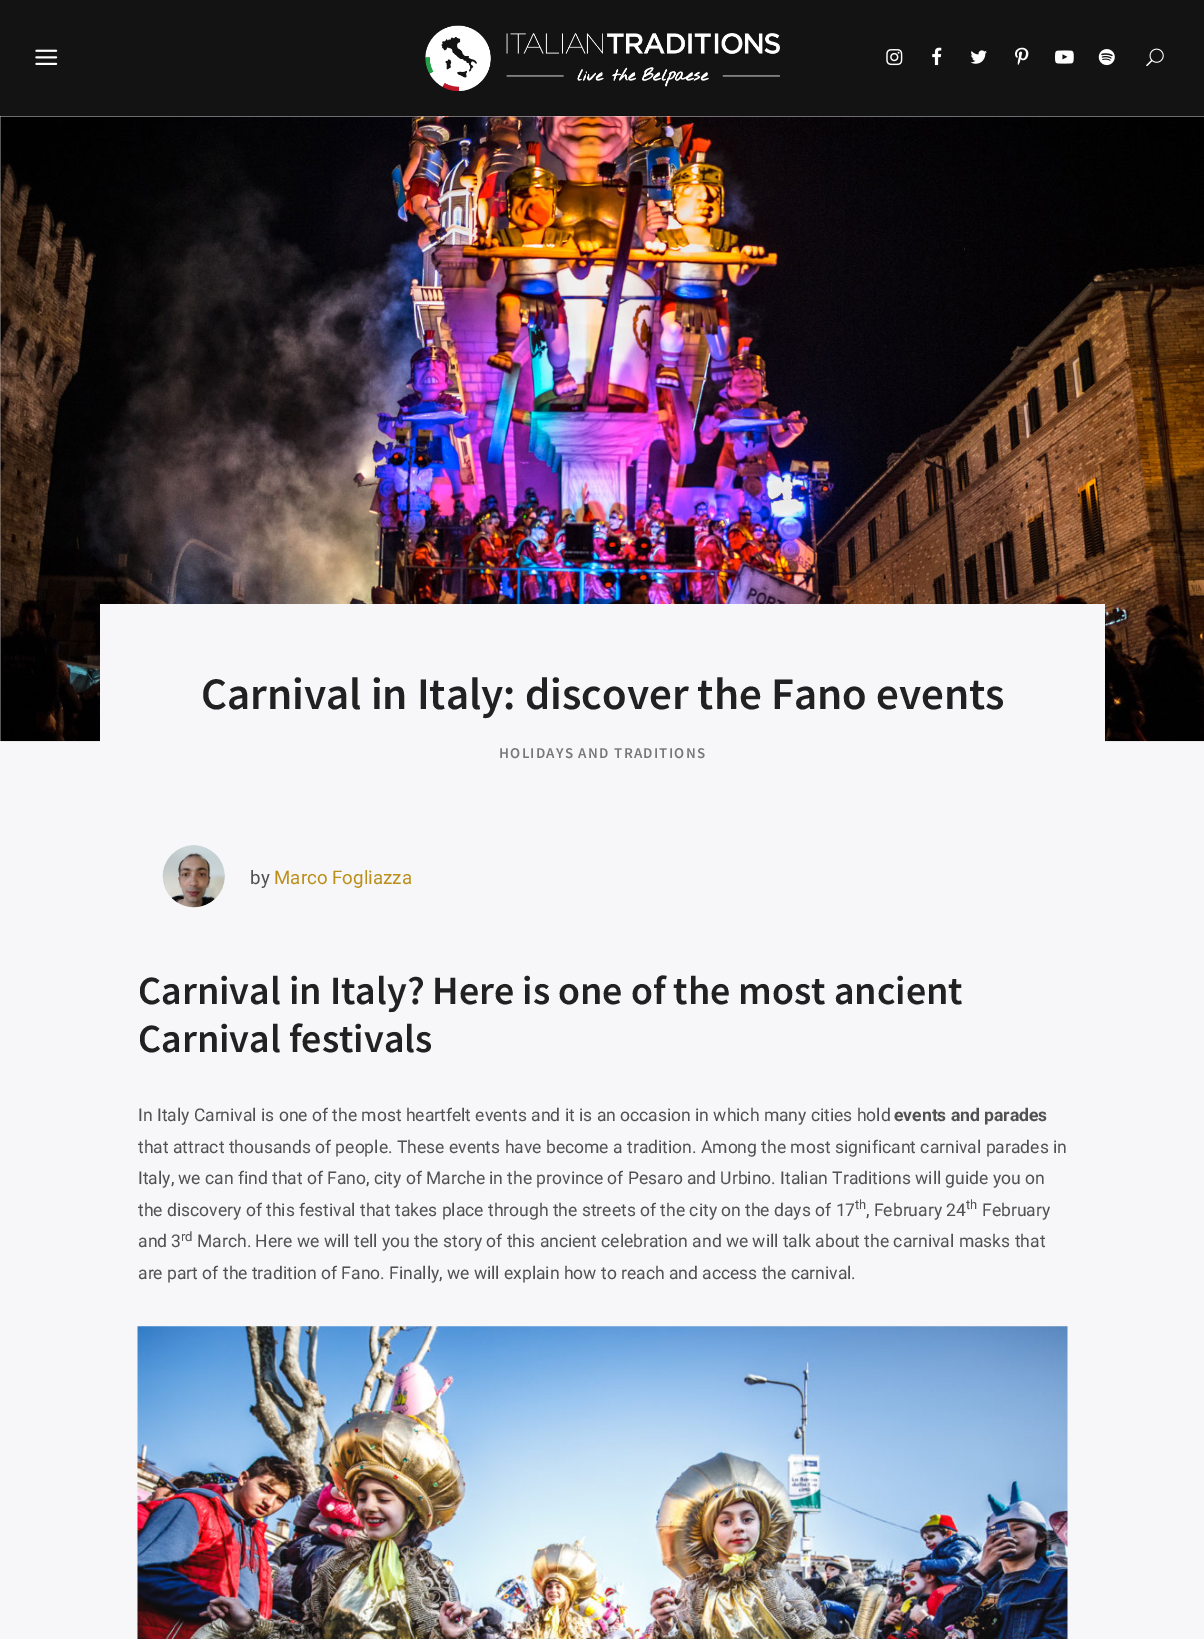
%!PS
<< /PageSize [1204 1639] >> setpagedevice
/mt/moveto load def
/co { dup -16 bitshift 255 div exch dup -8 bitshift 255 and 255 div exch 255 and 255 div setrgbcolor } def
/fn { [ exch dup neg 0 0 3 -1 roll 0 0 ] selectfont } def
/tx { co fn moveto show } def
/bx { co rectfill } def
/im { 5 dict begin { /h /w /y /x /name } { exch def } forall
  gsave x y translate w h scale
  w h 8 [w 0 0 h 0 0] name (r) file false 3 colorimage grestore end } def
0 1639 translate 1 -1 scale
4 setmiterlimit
0 0 1204 1639 16#F7F7F9 bx
0 0 1204 116 16#131313 bx
(media/1.raw) 35 49 23 16 im
(media/2.raw) 425 25 355 67 im
(media/3.raw) 886 49 17 17 im
(media/4.raw) 932 47 10 19 im
(media/5.raw) 970 50 17 14 im
(media/6.raw) 1015 47 14 18 im
(media/7.raw) 1055 50 19 14 im
(media/8.raw) 1098 49 17 17 im
(media/9.raw) 1146 48 18 19 im
(media/10.raw) 0 116 1204 626 im
100 604 1005 138 16#F7F7F9 bx
(media/11.raw) 162 845 63 63 im
(media/12.raw) 137 1326 931 313 im
(Carnival in Italy: discover the Fano events) 201 709 /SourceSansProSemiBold-SemiBold 45 16#212121 tx
/SourceSansProSemiBold-SemiBold 15 fn
16#777777 co
499 758 mt 1.25 0 (HOLIDAYS AND TRADITIONS) ashow
(by) 250 884 /Roboto-Regular 18.75 16#515151 tx
(Marco Fogliazza) 274 884 /Roboto-Regular 18.75 16#BA8F1A tx
(Carnival in Italy? Here is one of the most ancient) 138 1004 /SourceSansProSemiBold-SemiBold 40 16#212121 tx
(Carnival festivals) 138 1052 /SourceSansProSemiBold-SemiBold 40 16#212121 tx
(In Italy Carnival is one of the most heartfelt events and it is an occasion in which many cities hold) 138 1121 /Roboto-Regular 17.5 16#515151 tx
(events and parades) 894 1121 /Roboto-Bold 17.5 16#515151 tx
(that attract thousands of people. These events have become a tradition. Among the most significant carnival parades in) 138 1153 /Roboto-Regular 17.5 16#515151 tx
(Italy, we can find that of Fano, city of Marche in the province of Pesaro and Urbino. Italian Traditions will guide you on) 138 1184 /Roboto-Regular 17.5 16#515151 tx
(the discovery of this festival that takes place through the streets of the city on the days of 17) 138 1216 /Roboto-Regular 17.5 16#515151 tx
(th) 855 1209 /Roboto-Regular 13 16#515151 tx
(, February 24) 866 1216 /Roboto-Regular 17.5 16#515151 tx
(th) 966 1209 /Roboto-Regular 13 16#515151 tx
(February) 982 1216 /Roboto-Regular 17.5 16#515151 tx
(and 3) 138 1247 /Roboto-Regular 17.5 16#515151 tx
(rd) 181 1241 /Roboto-Regular 13 16#515151 tx
(March. Here we will tell you the story of this ancient celebration and we will talk about the carnival masks that) 197 1247 /Roboto-Regular 17.5 16#515151 tx
(are part of the tradition of Fano. Finally, we will explain how to reach and access the carnival.) 138 1279 /Roboto-Regular 17.5 16#515151 tx
showpage
